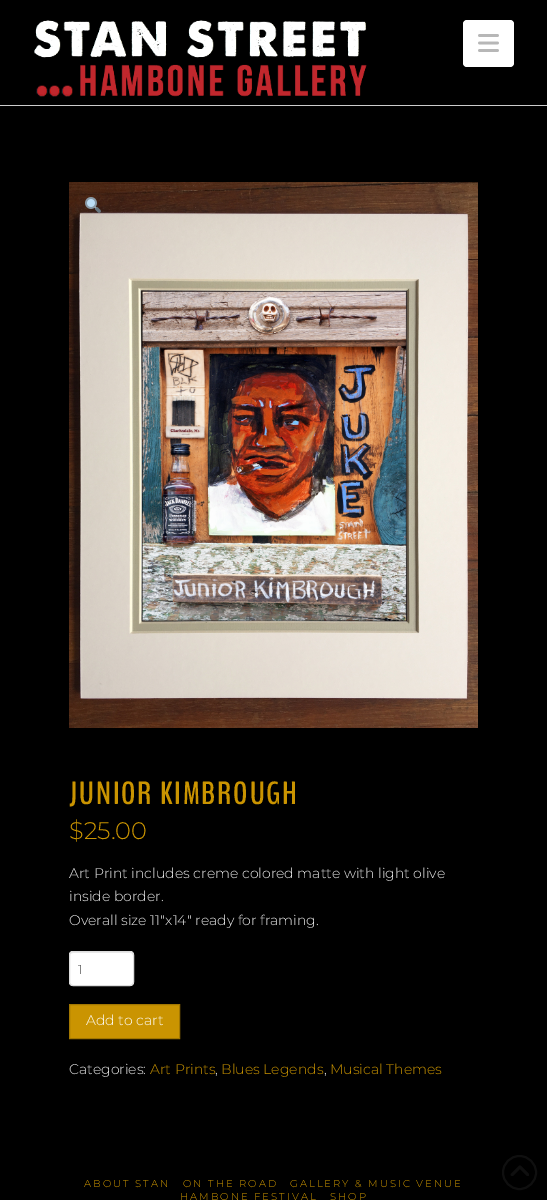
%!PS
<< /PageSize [547 1200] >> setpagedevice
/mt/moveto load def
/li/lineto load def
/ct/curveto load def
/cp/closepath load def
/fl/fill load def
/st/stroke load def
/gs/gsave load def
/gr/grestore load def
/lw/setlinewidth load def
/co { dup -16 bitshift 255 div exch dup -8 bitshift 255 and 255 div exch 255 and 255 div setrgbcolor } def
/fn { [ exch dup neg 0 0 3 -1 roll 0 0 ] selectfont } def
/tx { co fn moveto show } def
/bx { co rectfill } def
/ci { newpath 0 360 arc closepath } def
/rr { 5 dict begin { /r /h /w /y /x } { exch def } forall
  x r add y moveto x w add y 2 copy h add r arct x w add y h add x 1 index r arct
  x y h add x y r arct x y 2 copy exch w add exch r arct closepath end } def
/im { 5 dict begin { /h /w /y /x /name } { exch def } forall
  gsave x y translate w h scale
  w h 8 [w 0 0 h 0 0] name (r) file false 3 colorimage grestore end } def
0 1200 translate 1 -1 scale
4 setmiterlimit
0 0 547 1200 16#000000 bx
0 105 547 1 16#CCCCCC bx
(media/1.raw) 34 20 333 77 im
16#FFFFFF co
463 20 51 47 4 rr fl
(media/2.raw) 478 34 21 18 im
(media/3.raw) 69 182 409 546 im
(media/4.raw) 85 197 16 16 im
69 951 65 35 4 rr fl
16#ECECEC co
73 953 mt 130 953 li 132 953 133 954 133 956 ct 133 950 125 952 120 952 ct 82 952 li 78 952 70 950 70 956 ct 70 954 71 953 73 953 ct cp fl
16#DDDDDD co
69.5 951.5 64 34 3.5 rr st
16#CA9401 co
69.5 1004.5 mt 179.5 1004.5 li 179.5 1038.5 li 69.5 1038.5 li cp gs fl gr
16#A27701 co
st
16#0F0F0F co
2 lw
519.5 1172.5 16.5 ci st
(media/5.raw) 510 1165 19 11 im
/BenchNine-Bold 32 fn
16#CA9401 co
69 804 mt 1.8 0 (JUNIOR KIMBROUGH) ashow
($25.00) 69 839 /Montserrat-Light 24 16#CA9401 tx
(Art Print includes creme colored matte with light olive) 69 878 /Montserrat-Light 14 16#EDEDED tx
(inside border.) 69 901 /Montserrat-Light 14 16#EDEDED tx
(Overall size 11″x14″ ready for framing.) 69 925 /Montserrat-Light 14 16#EDEDED tx
(1) 78 974 /Montserrat-Light 13 16#555555 tx
(Add to cart) 86 1025 /Montserrat-Light 14 16#FFFFFF tx
(Categories:) 69 1074 /Montserrat-Light 14 16#EDEDED tx
(Art Prints) 150 1074 /Montserrat-Light 14 16#CA9401 tx
(,) 215 1074 /Montserrat-Light 14 16#EDEDED tx
(Blues Legends) 221 1074 /Montserrat-Light 14 16#CA9401 tx
(,) 324 1074 /Montserrat-Light 14 16#EDEDED tx
(Musical Themes) 330 1074 /Montserrat-Light 14 16#CA9401 tx
/Montserrat-Light 10 fn
84 1187 mt 2 0 (ABOUT STAN) ashow
183 1187 mt 2 0 (ON THE ROAD) ashow
290 1187 mt 2 0 (GALLERY & MUSIC VENUE) ashow
180 1200 mt 2 0 (HAMBONE FESTIVAL) ashow
330 1200 mt 2 0 (SHOP) ashow
showpage
